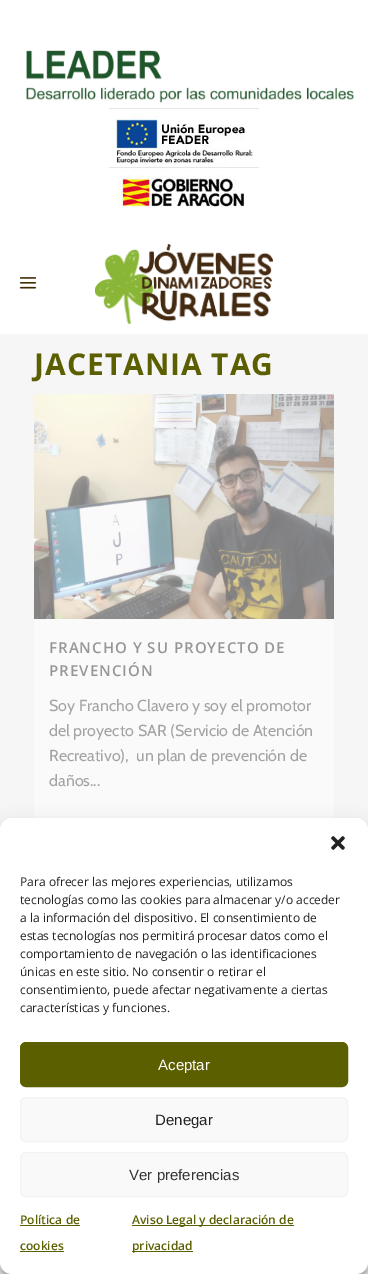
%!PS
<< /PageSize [368 1274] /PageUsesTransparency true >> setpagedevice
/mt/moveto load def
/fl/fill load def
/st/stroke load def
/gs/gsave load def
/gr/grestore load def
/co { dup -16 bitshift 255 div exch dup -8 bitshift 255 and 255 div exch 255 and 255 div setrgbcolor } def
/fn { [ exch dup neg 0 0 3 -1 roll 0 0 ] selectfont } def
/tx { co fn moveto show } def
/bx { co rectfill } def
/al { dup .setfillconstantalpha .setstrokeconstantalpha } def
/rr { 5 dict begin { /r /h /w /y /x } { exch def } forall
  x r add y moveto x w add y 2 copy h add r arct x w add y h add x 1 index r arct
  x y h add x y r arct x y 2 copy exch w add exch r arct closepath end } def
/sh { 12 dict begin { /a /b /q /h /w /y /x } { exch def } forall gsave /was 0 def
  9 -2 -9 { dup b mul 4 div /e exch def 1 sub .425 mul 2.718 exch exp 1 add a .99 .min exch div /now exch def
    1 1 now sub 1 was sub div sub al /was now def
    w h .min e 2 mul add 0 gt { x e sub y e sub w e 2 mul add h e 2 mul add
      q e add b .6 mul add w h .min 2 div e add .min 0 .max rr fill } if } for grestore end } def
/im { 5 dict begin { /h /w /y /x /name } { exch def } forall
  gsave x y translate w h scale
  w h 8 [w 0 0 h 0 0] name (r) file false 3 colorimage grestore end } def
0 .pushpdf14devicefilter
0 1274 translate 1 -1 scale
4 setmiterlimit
0 0 368 1274 16#F6F6F6 bx
0 0 368 334 16#FFFFFF bx
(media/1.raw) 19 277 18 12 im
(media/2.raw) 95 244 178 80 im
(media/3.raw) 26 50 328 53 im
(media/4.raw) 109 108 150 56 im
(media/5.raw) 109 167 150 40 im
(media/6.raw) 34 394 300 225 im
34 619 300 199 16#FAFAFA bx
16#000000 co
0 824 368 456 12 3 .23 sh
0 828 368 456 12 10 .19 sh
16#808080 co
298 1200 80 60 2 2.5 1 sh
16#FFFFFF co
0 818 368 456 12 rr fl
(media/7.raw) 331 836 14 14 im
16#5B5F00 co
20.5 1042.5 327 44 5.5 rr gs fl gr
st
16#F9F9F9 co
20.5 1097.5 327 44 5.5 rr gs fl gr
16#F2F2F2 co
st
16#F9F9F9 co
20.5 1152.5 327 44 5.5 rr gs fl gr
16#F2F2F2 co
st
20 1225 60 1 16#5B5F00 bx
20 1251 44 1 16#5B5F00 bx
132 1225 162 1 16#5B5F00 bx
132 1251 61 1 16#5B5F00 bx
/OpenSans-Bold 30 fn
34 375 mt 1 0 (JACETANIA TAG) ashow
/OpenSans-SemiBold 15 fn
16#969696 co
49 653 mt 1 0 (FRANCHO Y SU PROYECTO DE) ashow
49 676 mt 1 0 (PREVENCIÓN) ashow
(Soy Francho Clavero y soy el promotor) 49 711 /Cabin-Regular 16 16#A3A3A3 tx
(del proyecto SAR \(Servicio de Atención) 49 736 /Cabin-Regular 16 16#A3A3A3 tx
(Recreativo\),  un plan de prevención de) 49 761 /Cabin-Regular 16 16#A3A3A3 tx
(daños...) 49 786 /Cabin-Regular 16 16#A3A3A3 tx
(Para ofrecer las mejores experiencias, utilizamos) 20 886 /OpenSans-Regular 12 16#222222 tx
(tecnologías como las cookies para almacenar y/o acceder) 20 904 /OpenSans-Regular 12 16#222222 tx
(a la información del dispositivo. El consentimiento de) 20 922 /OpenSans-Regular 12 16#222222 tx
(estas tecnologías nos permitirá procesar datos como el) 20 940 /OpenSans-Regular 12 16#222222 tx
(comportamiento de navegación o las identificaciones) 20 958 /OpenSans-Regular 12 16#222222 tx
(únicas en este sitio. No consentir o retirar el) 20 976 /OpenSans-Regular 12 16#222222 tx
(consentimiento, puede afectar negativamente a ciertas) 20 994 /OpenSans-Regular 12 16#222222 tx
(características y funciones.) 20 1012 /OpenSans-Regular 12 16#222222 tx
(Aceptar) 158 1070 /LiberationSans-Regular 15 16#FFFFFF tx
(Denegar) 155 1125 /LiberationSans-Regular 15 16#222222 tx
(Ver preferencias) 129 1180 /LiberationSans-Regular 15 16#333333 tx
(Política de) 20 1224 /OpenSans-SemiBold 12 16#5B5F00 tx
(cookies) 20 1250 /OpenSans-SemiBold 12 16#5B5F00 tx
(Aviso Legal y declaración de) 132 1224 /OpenSans-SemiBold 12 16#5B5F00 tx
(privacidad) 132 1250 /OpenSans-SemiBold 12 16#5B5F00 tx
.poppdf14devicefilter showpage
